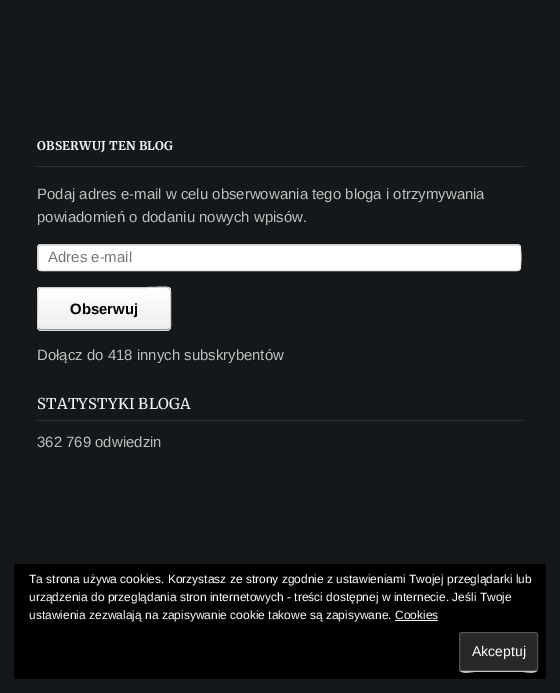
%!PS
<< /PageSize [560 693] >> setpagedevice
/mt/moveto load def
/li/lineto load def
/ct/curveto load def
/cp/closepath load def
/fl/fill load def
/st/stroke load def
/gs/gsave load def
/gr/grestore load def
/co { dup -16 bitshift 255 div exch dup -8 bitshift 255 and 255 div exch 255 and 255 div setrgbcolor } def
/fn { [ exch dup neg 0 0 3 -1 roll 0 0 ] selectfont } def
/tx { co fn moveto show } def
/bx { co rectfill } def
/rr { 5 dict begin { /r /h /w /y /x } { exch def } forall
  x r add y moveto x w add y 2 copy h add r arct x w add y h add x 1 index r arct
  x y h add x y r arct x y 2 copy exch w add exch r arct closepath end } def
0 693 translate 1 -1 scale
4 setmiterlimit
0 0 560 693 16#15181A bx
37 166 486 1 16#333333 bx
16#FFFFFF co
37 244 484 27 4 rr fl
16#E6E6E6 co
42 246 mt 519 246 li 517 245 li 41 245 li 36 245 38 255 38 258 ct 38 260 37 268 39 269 ct 39 252 li 39 250 38 246 42 246 ct cp fl
16#EEEEEE co
519.5 245.5 mt 521.5 247.5 521 267 520 268.5 ct 519.5 270 518.5 270.5 517 270.5 ct 41 270.5 li 38.5 269.5 li st
gs
37 134 486 229 rectclip
16#CCCCCC co
38.5 269.5 mt 36.5 267.5 37 248 38 246.5 ct 38.5 245 39.5 244.5 41 244.5 ct 517 244.5 li 519.5 245.5 li st
gr
37 326 mt 37 327 li 37 329 39 331 41 331 ct 167 331 li 169 331 171 329 171 327 ct 171 326 li 171 328 169 330 167 330 ct 41 330 li 39 330 37 328 37 326 ct cp fl
gs
37 287 134 43 4 rr clip newpath
gs 37 287 mt 171 287 li 171 288 li 37 288 li cp clip newpath
<< /ShadingType 2 /ColorSpace /DeviceRGB /Coords [104 247 104 288] /Extend [true true] /Function << /FunctionType 2 /Domain [0 1] /C0 [1 1 1] /C1 [.933 .933 .933] /N 1 >> >> shfill gr
gs 37 288 mt 171 288 li 171 329 li 37 329 li cp clip newpath
<< /ShadingType 2 /ColorSpace /DeviceRGB /Coords [104 288 104 329] /Extend [true true] /Function << /FunctionType 2 /Domain [0 1] /C0 [1 1 1] /C1 [.933 .933 .933] /N 1 >> >> shfill gr
gr
16#999999 co
169.5 328.5 mt 169 329 168 329.5 167 329.5 ct 41 329.5 li 40 329.5 39 329 38.5 328.5 ct st
gs
37 134 486 229 rectclip
16#CCCCCC co
38.5 328.5 mt 36 326 37.5 317 37.5 314.5 ct 37.5 297 li 37.5 294 36.5 287.5 41 287.5 ct 146 287.5 li 175 287.5 170.5 282 170.5 308.5 ct 170.5 320 li 170.5 322 171.5 326.5 169.5 328.5 ct st
gr
37 420 486 1 16#333333 bx
14 564 532 115 16#000000 bx
395 620 43 1 16#FFFFFF bx
16#EEEEEE co
459 668 mt 459 675 470 672 474 672 ct 523 672 li 527 672 538 675 538 668 ct 538 670 537 671 535 671 ct 462 671 li 460 671 459 670 459 668 ct cp fl
16#282828 co
459.5 632.5 78 38 2.5 rr gs fl gr
16#535353 co
st
/Merriweather-Bold 12 fn
16#F5F5F5 co
37 150 mt .25 0 (OBSERWUJ TEN BLOG) ashow
(Podaj adres e-mail w celu obserwowania tego bloga i otrzymywania) 37 199 /LiberationSans-Regular 14.95 16#BFBFBF tx
(powiadomień o dodaniu nowych wpisów.) 37 222 /LiberationSans-Regular 14.95 16#BFBFBF tx
(Adres e-mail) 48 262 /LiberationSans-Regular 14.95 16#757575 tx
(Obserwuj) 70 314 /LiberationSans-Bold 14.95 16#000000 tx
gs
37 134 486 229 rectclip
(Dołącz do 418 innych subskrybentów) 37 360 /LiberationSans-Regular 14.95 16#BFBFBF tx
gr
/Merriweather-Regular 14.95 fn
16#F5F5F5 co
37 409 mt .25 0 (STATYSTYKI BLOGA) ashow
(362 769 odwiedzin) 37 447 /LiberationSans-Regular 14.95 16#BFBFBF tx
(Ta strona używa cookies. Korzystasz ze strony zgodnie z ustawieniami Twojej przeglądarki lub) 29 583 /LiberationSans-Regular 12 16#FFFFFF tx
(urządzenia do przeglądania stron internetowych - treści dostępnej w internecie. Jeśli Twoje) 29 601 /LiberationSans-Regular 12 16#FFFFFF tx
(ustawienia zezwalają na zapisywanie cookie takowe są zapisywane. Cookies) 29 619 /LiberationSans-Regular 12 16#FFFFFF tx
(Akceptuj) 472 656 /LiberationSans-Regular 14 16#FFFFFF tx
showpage
